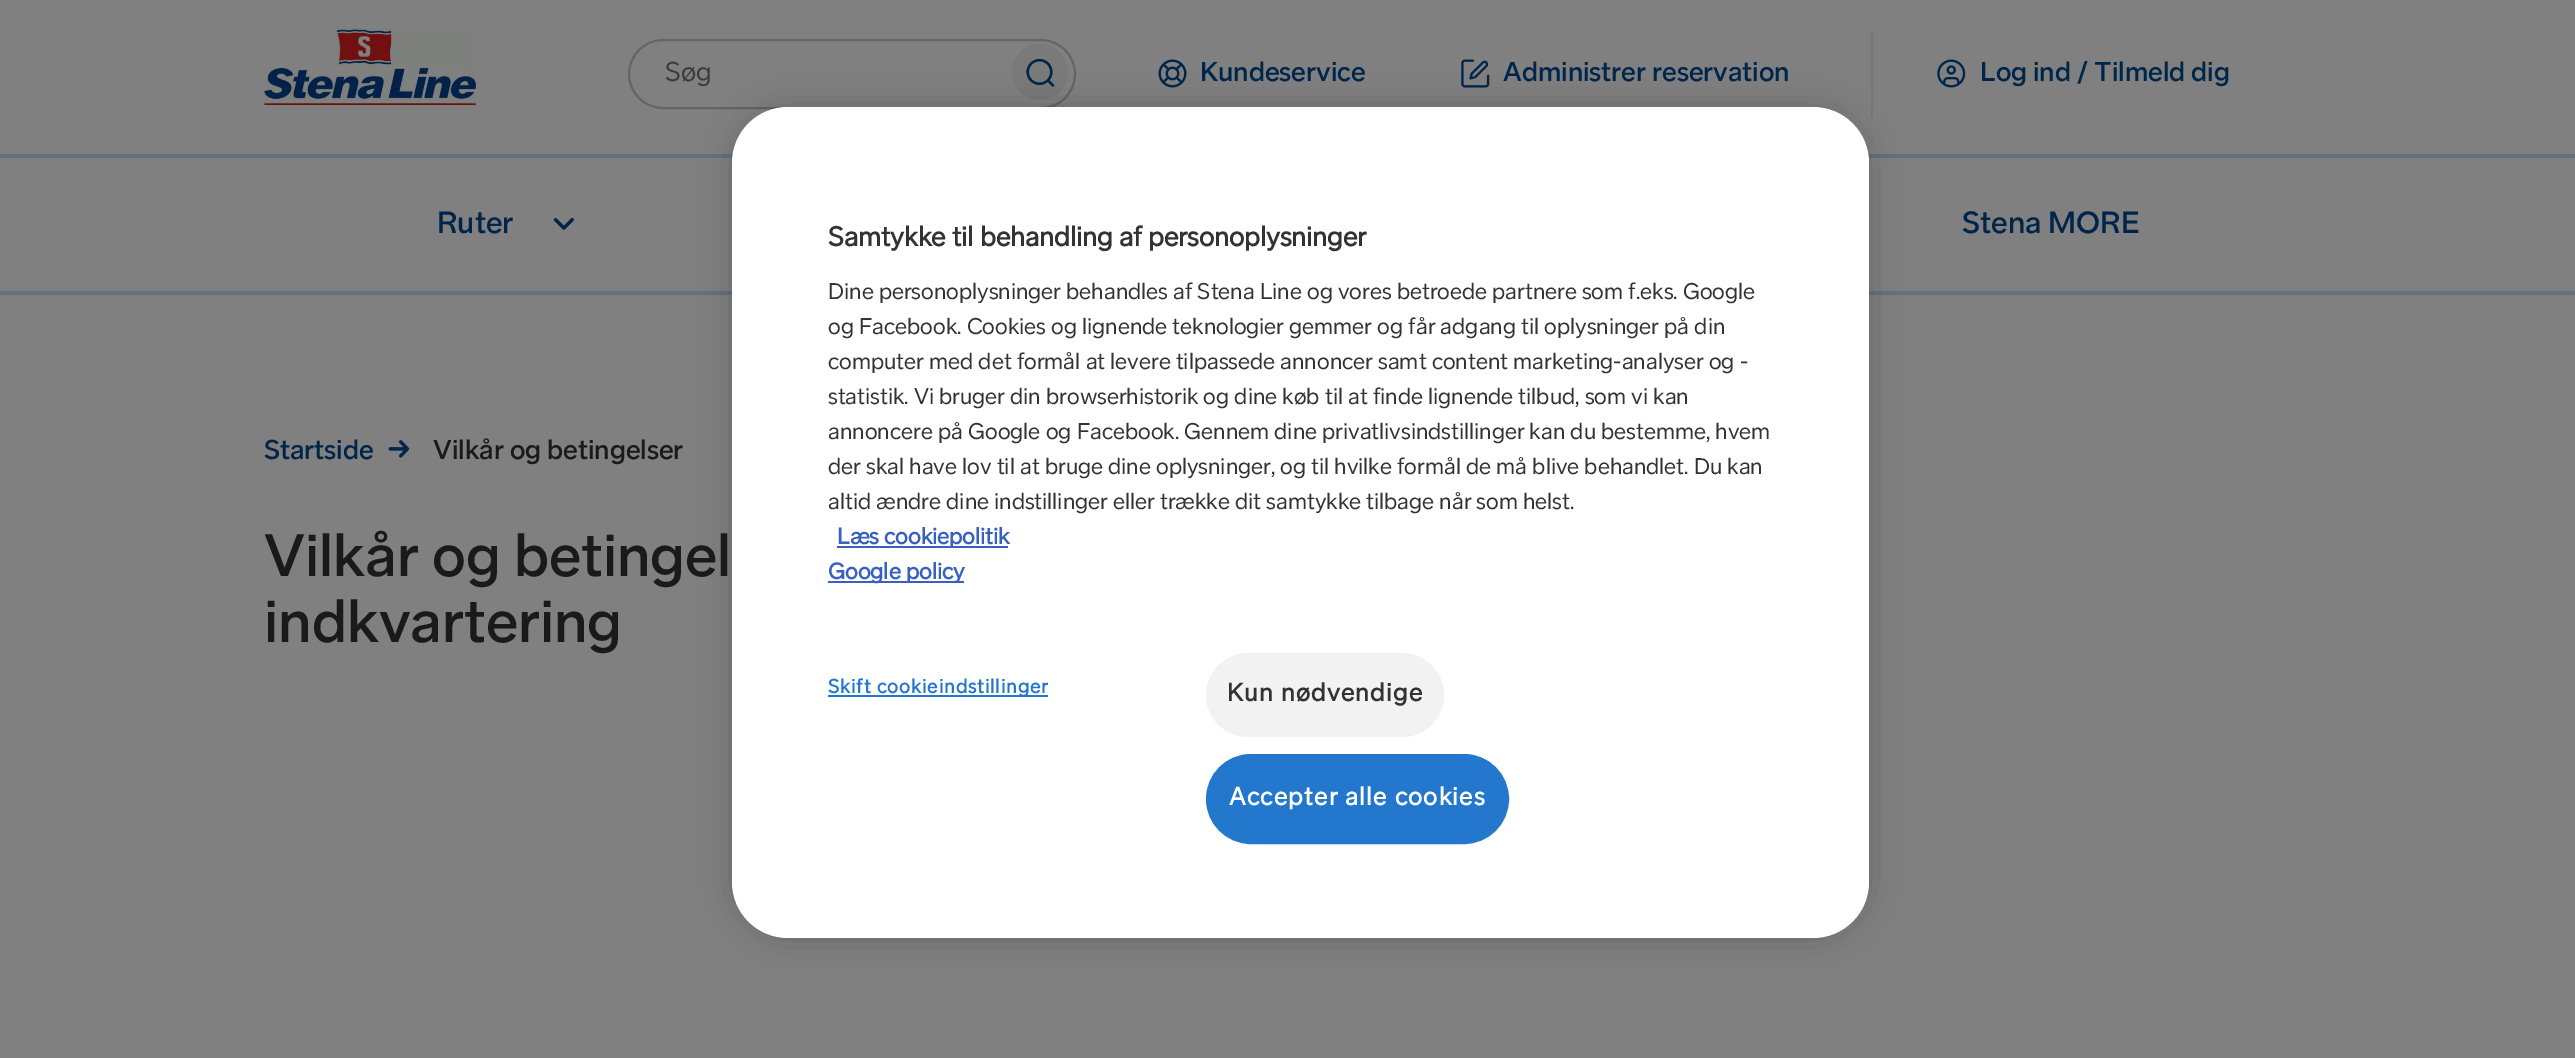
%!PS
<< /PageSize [2575 1058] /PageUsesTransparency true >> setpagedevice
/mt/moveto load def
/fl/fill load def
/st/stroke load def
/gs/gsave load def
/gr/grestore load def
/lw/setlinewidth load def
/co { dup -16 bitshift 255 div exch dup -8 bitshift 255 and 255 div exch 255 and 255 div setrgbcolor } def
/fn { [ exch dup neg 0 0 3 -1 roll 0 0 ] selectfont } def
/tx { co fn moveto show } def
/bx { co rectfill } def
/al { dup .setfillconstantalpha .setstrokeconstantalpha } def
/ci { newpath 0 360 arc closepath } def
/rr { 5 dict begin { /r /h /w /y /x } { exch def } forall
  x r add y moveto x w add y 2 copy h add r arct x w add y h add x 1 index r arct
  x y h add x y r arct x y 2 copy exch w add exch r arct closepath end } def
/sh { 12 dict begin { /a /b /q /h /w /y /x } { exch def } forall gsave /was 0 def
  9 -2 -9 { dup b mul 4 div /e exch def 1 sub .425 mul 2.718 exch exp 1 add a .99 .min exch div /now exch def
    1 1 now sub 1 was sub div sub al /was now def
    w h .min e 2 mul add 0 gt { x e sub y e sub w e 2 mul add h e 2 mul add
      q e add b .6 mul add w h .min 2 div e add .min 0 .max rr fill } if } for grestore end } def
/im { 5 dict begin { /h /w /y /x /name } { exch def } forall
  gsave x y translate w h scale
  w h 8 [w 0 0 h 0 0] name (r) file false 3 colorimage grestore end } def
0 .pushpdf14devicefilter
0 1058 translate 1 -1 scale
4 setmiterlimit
0 0 2575 1058 16#808080 bx
(media/1.raw) 264 28 212 77 im
16#656565 co
2 lw
629 40 446 68 34 rr st
16#7A7A7A co
1040 72 28 ci fl
(media/2.raw) 1026 58 29 29 im
(media/3.raw) 1158 59 29 29 im
(media/4.raw) 1461 59 29 29 im
1871 30 2 88 16#767676 bx
(media/5.raw) 1937 59 29 29 im
0 154 2575 4 16#65717E bx
0 291 2575 4 16#65717E bx
(media/6.raw) 553 218 21 12 im
(media/7.raw) 388 440 22 18 im
16#000000 co
732 107 1137 831 56 16 .2 sh
16#FFFFFF co
732 107 1137 831 56 rr fl
837 546 171 2 16#3860BE bx
828 581 136 2 16#3860BE bx
828 695 220 2 16#2378CD bx
16#F2F2F2 co
1206 653 238 84 42 rr fl
16#2378CD co
1207 755 301 88 44 rr gs fl gr
st
(Søg) 665 81 /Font-Regular 28 16#3B3B3B tx
(Kundeservice) 1200 81 /Font-Medium 28 16#00254A tx
(Administrer reservation) 1503 81 /Font-Medium 28 16#00254A tx
(Log ind / Tilmeld dig) 1980 81 /Font-Medium 28 16#00254A tx
(Ruter) 437 233 /Font-Medium 31.5 16#00254A tx
(Stena MORE) 1962 233 /Font-Medium 31.5 16#00254A tx
(Startside) 264 459 /Font-Medium 28 16#00254A tx
(Vilkår og betingelser) 433 459 /Font-Medium 28 16#1A1A1A tx
(Vilkår og betingel) 264 576 /Font-Medium 61.25 16#1A1A1A tx
(indkvartering) 264 642 /Font-Medium 61.25 16#1A1A1A tx
(Samtykke til behandling af personoplysninger) 828 246 /Font-Bold 28 16#333333 tx
(Dine personoplysninger behandles af Stena Line og vores betroede partnere som f.eks. Google) 828 299 /Font-Regular 23.35 16#333333 tx
(og Facebook. Cookies og lignende teknologier gemmer og får adgang til oplysninger på din) 828 334 /Font-Regular 23.35 16#333333 tx
(computer med det formål at levere tilpassede annoncer samt content marketing-analyser og -) 828 369 /Font-Regular 23.35 16#333333 tx
(statistik. Vi bruger din browserhistorik og dine køb til at finde lignende tilbud, som vi kan) 828 404 /Font-Regular 23.35 16#333333 tx
(annoncere på Google og Facebook. Gennem dine privatlivsindstillinger kan du bestemme, hvem) 828 439 /Font-Regular 23.35 16#333333 tx
(der skal have lov til at bruge dine oplysninger, og til hvilke formål de må blive behandlet. Du kan) 828 474 /Font-Regular 23.35 16#333333 tx
(altid ændre dine indstillinger eller trække dit samtykke tilbage når som helst.) 828 509 /Font-Regular 23.35 16#333333 tx
(Læs cookiepolitik) 837 544 /Font-Bold 23.35 16#3860BE tx
(Google policy) 828 579 /Font-Bold 23.35 16#3860BE tx
/Font-Bold 20 fn
16#2378CD co
828 693 mt 1 0 (Skift cookieindstillinger) ashow
/Font-Bold 25.75 fn
16#333333 co
1227 701 mt 1.25 0 (Kun nødvendige) ashow
16#FFFFFF co
1229 805 mt 1.25 0 (Accepter alle cookies) ashow
.poppdf14devicefilter showpage
